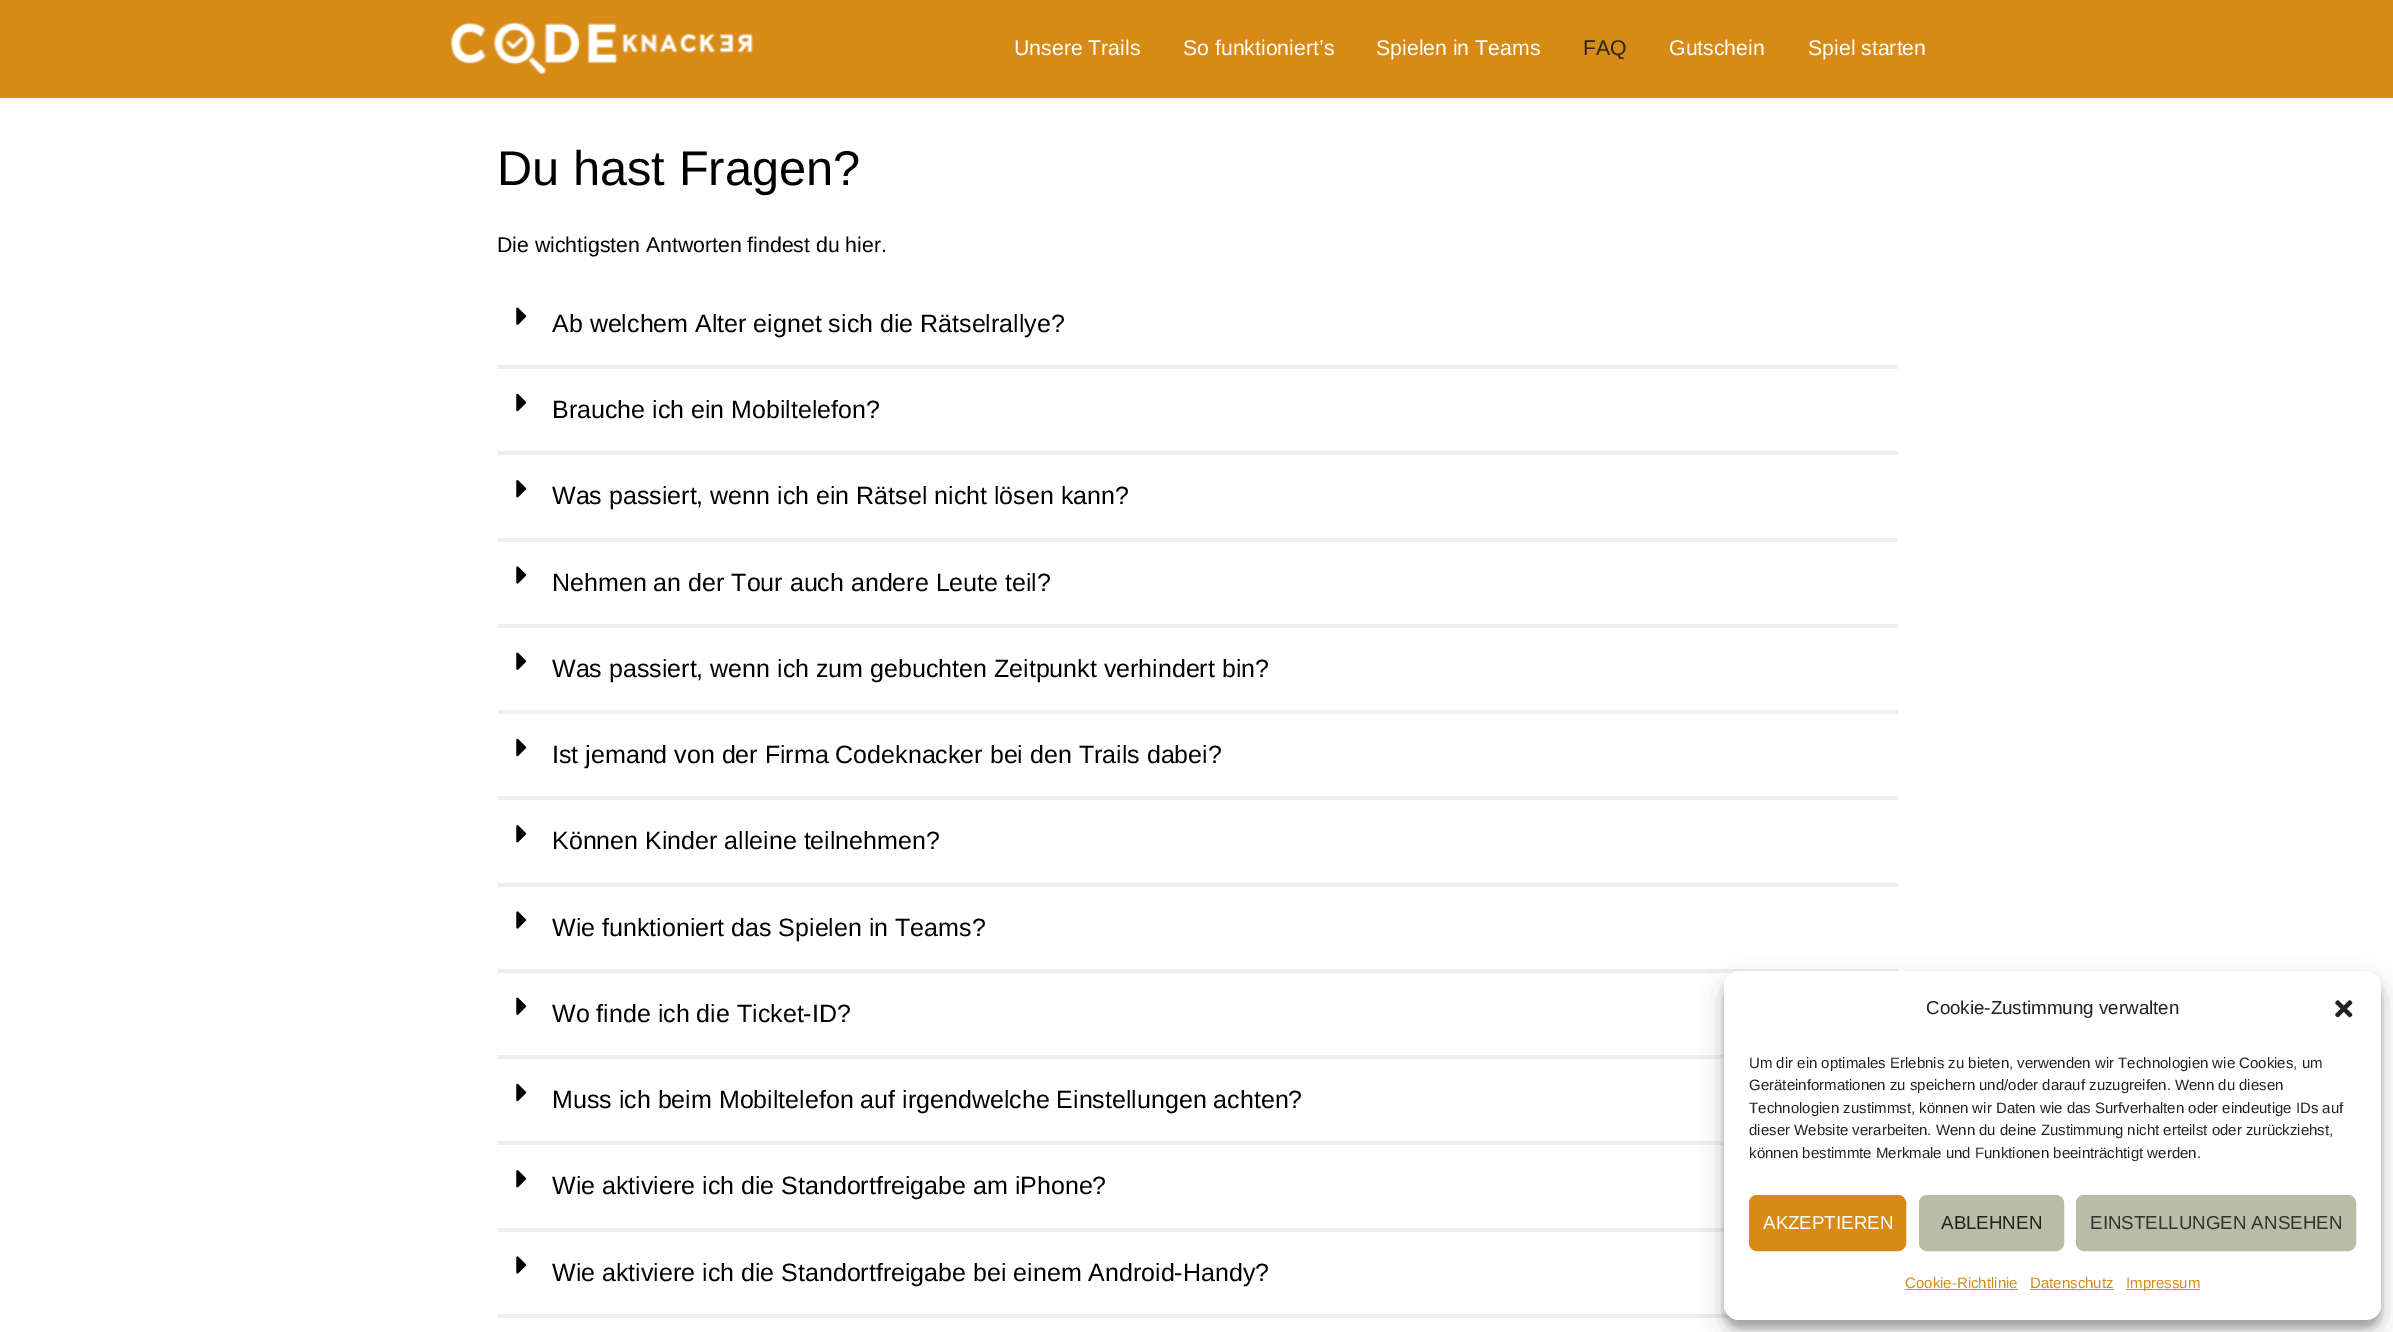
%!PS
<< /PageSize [2393 1332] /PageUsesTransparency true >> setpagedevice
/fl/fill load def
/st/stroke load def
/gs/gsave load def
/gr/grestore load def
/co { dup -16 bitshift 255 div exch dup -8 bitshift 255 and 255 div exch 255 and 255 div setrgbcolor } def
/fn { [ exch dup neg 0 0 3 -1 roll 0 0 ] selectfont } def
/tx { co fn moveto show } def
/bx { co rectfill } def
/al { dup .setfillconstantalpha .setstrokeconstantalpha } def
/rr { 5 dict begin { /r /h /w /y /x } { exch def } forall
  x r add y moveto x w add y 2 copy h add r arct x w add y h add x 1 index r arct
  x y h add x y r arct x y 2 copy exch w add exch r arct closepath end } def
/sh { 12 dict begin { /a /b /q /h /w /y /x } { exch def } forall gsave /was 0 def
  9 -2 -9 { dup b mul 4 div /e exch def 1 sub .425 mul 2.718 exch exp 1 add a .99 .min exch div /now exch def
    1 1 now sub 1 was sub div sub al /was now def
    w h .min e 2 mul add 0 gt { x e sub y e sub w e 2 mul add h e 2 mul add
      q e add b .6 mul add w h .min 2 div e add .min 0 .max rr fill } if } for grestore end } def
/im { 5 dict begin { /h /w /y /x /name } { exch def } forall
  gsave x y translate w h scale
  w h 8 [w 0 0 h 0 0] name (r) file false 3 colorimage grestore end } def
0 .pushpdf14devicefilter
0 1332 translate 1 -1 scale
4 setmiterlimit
0 0 2393 1332 16#FFFFFF bx
0 0 2393 98 16#D88A16 bx
(media/1.raw) 451 22 303 52 im
498 365 1400 4 16#EEEEEE bx
(media/2.raw) 516 307 11 18 im
498 451 1400 4 16#EEEEEE bx
(media/3.raw) 516 393 11 19 im
498 538 1400 4 16#EEEEEE bx
(media/4.raw) 516 480 11 18 im
498 624 1400 4 16#EEEEEE bx
(media/5.raw) 516 566 11 18 im
498 710 1400 4 16#EEEEEE bx
(media/2.raw) 516 652 11 18 im
498 796 1400 4 16#EEEEEE bx
(media/3.raw) 516 738 11 19 im
498 883 1400 4 16#EEEEEE bx
(media/4.raw) 516 825 11 18 im
498 969 1400 4 16#EEEEEE bx
(media/5.raw) 516 911 11 18 im
498 1055 1226 4 16#EEEEEE bx
(media/2.raw) 516 997 11 18 im
498 1141 1226 4 16#EEEEEE bx
(media/3.raw) 516 1083 11 19 im
498 1228 1226 4 16#EEEEEE bx
(media/4.raw) 516 1170 11 18 im
498 1314 1234 4 16#EEEEEE bx
(media/5.raw) 516 1256 11 18 im
16#000000 co
1724 979 657 349 15 4 .23 sh
1724 984 657 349 15 12.5 .19 sh
16#FFFFFF co
1724 971 657 349 15 rr fl
(media/6.raw) 2335 1000 18 18 im
16#D88A16 co
1749.5 1195.5 156 55 7.5 rr gs fl gr
st
16#B9BDA6 co
1919.5 1195.5 144 55 7.5 rr gs fl gr
st
2076.5 1195.5 279 55 7.5 rr gs fl gr
st
1905 1289 113 1 16#D88A16 bx
2030 1289 84 1 16#D88A16 bx
2126 1289 74 1 16#D88A16 bx
(Unsere Trails) 1014 55 /LiberationSans-Regular 21.25 16#FFFFFF tx
(So funktioniert’s) 1183 55 /LiberationSans-Regular 21.25 16#FFFFFF tx
(Spielen in Teams) 1376 55 /LiberationSans-Regular 21.25 16#FFFFFF tx
(FAQ) 1583 55 /LiberationSans-Regular 21.25 16#282425 tx
(Gutschein) 1669 55 /LiberationSans-Regular 21.25 16#FFFFFF tx
(Spiel starten) 1808 55 /LiberationSans-Regular 21.25 16#FFFFFF tx
(Du hast Fragen?) 497 185 /LiberationSans-Regular 48.75 16#000000 tx
(Die wichtigsten Antworten findest du hier.) 497 252 /LiberationSans-Regular 21.25 16#000000 tx
(Ab welchem Alter eignet sich die Rätselrallye?) 552 332 /LiberationSans-Regular 25 16#000000 tx
(Brauche ich ein Mobiltelefon?) 552 418 /LiberationSans-Regular 25 16#000000 tx
(Was passiert, wenn ich ein Rätsel nicht lösen kann?) 552 504 /LiberationSans-Regular 25 16#000000 tx
(Nehmen an der Tour auch andere Leute teil?) 552 591 /LiberationSans-Regular 25 16#000000 tx
(Was passiert, wenn ich zum gebuchten Zeitpunkt verhindert bin?) 552 677 /LiberationSans-Regular 25 16#000000 tx
(Ist jemand von der Firma Codeknacker bei den Trails dabei?) 552 763 /LiberationSans-Regular 25 16#000000 tx
(Können Kinder alleine teilnehmen?) 552 849 /LiberationSans-Regular 25 16#000000 tx
(Wie funktioniert das Spielen in Teams?) 552 936 /LiberationSans-Regular 25 16#000000 tx
(Wo finde ich die Ticket-ID?) 552 1022 /LiberationSans-Regular 25 16#000000 tx
(Muss ich beim Mobiltelefon auf irgendwelche Einstellungen achten?) 552 1108 /LiberationSans-Regular 25 16#000000 tx
(Wie aktiviere ich die Standortfreigabe am iPhone?) 552 1194 /LiberationSans-Regular 25 16#000000 tx
(Wie aktiviere ich die Standortfreigabe bei einem Android-Handy?) 552 1281 /LiberationSans-Regular 25 16#000000 tx
(Cookie-Zustimmung verwalten) 1926 1014 /LiberationSans-Regular 18.75 16#222222 tx
(Um dir ein optimales Erlebnis zu bieten, verwenden wir Technologien wie Cookies, um) 1749 1068 /LiberationSans-Regular 15 16#222222 tx
(Geräteinformationen zu speichern und/oder darauf zuzugreifen. Wenn du diesen) 1749 1090 /LiberationSans-Regular 15 16#222222 tx
(Technologien zustimmst, können wir Daten wie das Surfverhalten oder eindeutige IDs auf) 1749 1113 /LiberationSans-Regular 15 16#222222 tx
(dieser Website verarbeiten. Wenn du deine Zustimmung nicht erteilst oder zurückziehst,) 1749 1135 /LiberationSans-Regular 15 16#222222 tx
(können bestimmte Merkmale und Funktionen beeinträchtigt werden.) 1749 1158 /LiberationSans-Regular 15 16#222222 tx
(AKZEPTIEREN) 1763 1229 /LiberationSans-Regular 18.75 16#FFFFFF tx
(ABLEHNEN) 1941 1229 /LiberationSans-Regular 18.75 16#222222 tx
(EINSTELLUNGEN ANSEHEN) 2090 1229 /LiberationSans-Regular 18.75 16#333333 tx
(Cookie-Richtlinie) 1905 1288 /LiberationSans-Regular 15 16#D88A16 tx
(Datenschutz) 2030 1288 /LiberationSans-Regular 15 16#D88A16 tx
(Impressum) 2126 1288 /LiberationSans-Regular 15 16#D88A16 tx
.poppdf14devicefilter showpage
